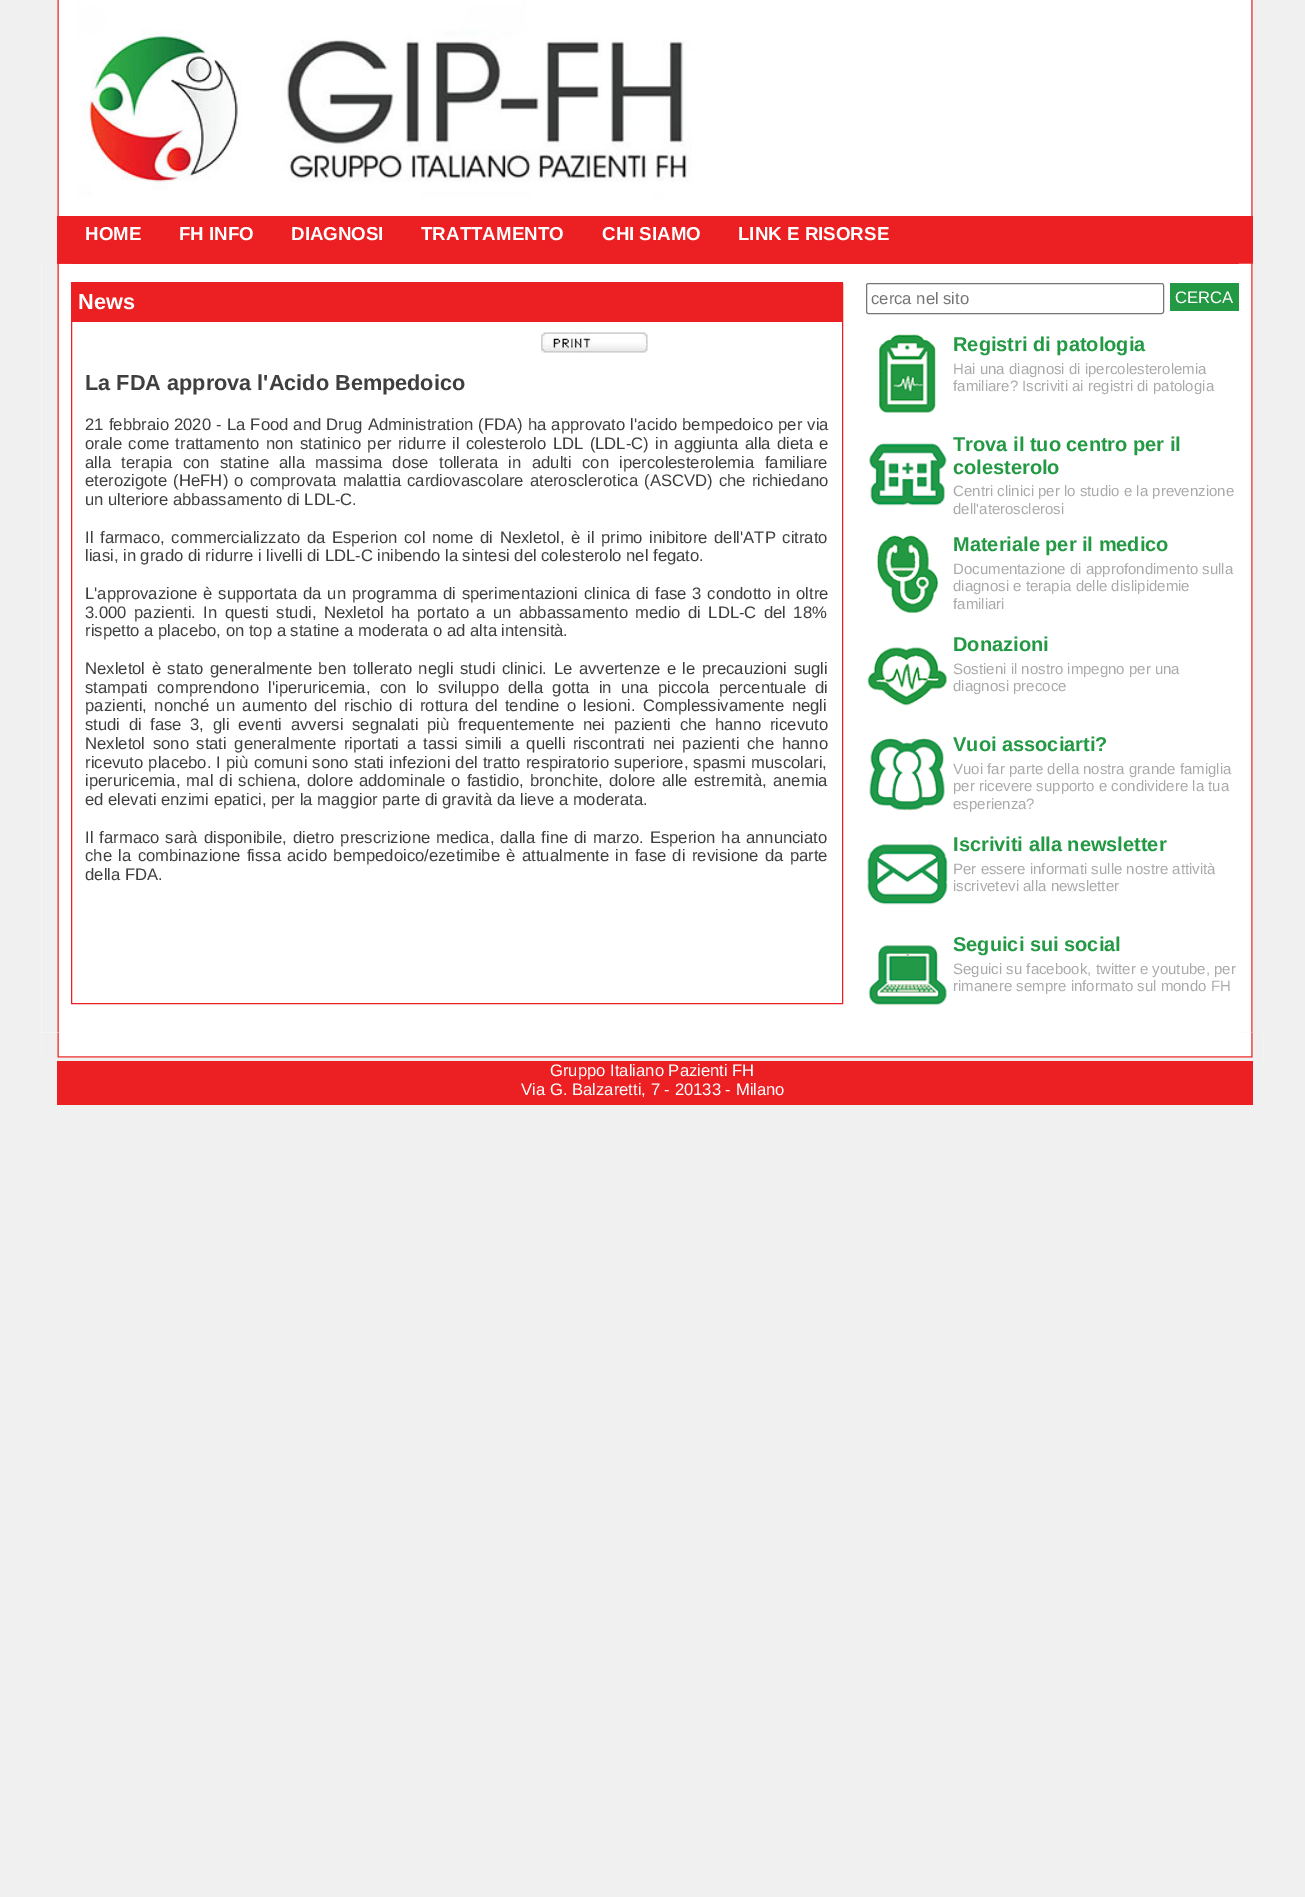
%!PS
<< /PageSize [1305 1897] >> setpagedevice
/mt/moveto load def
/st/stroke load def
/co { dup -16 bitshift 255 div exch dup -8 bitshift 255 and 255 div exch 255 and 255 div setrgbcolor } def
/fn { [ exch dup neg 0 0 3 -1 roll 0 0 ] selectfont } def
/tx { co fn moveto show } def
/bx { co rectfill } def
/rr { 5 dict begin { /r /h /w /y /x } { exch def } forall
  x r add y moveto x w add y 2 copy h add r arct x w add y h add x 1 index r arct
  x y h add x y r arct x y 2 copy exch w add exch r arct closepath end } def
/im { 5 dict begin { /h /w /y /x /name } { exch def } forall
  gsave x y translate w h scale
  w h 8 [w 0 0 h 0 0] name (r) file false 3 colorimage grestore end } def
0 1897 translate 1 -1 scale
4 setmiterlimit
0 0 1305 1897 16#F0F0F0 bx
(media/1.raw) 57 0 1204 217 im
57 216 1196 48 16#EC2023 bx
(media/2.raw) 1238 263 15 770 im
41 264 1198 769 16#FFFFFF bx
(media/3.raw) 41 263 30 770 im
16#EC2023 co
71.5 283.5 771 720 rectstroke
71 282 772 40 16#EC2023 bx
(media/4.raw) 541 332 107 21 im
16#767676 co
866.5 283.5 297 30 2 rr st
1170 283 69 28 16#239943 bx
(media/5.raw) 879 334 57 79 im
(media/6.raw) 869 443 78 63 im
(media/7.raw) 877 535 62 78 im
(media/8.raw) 867 647 80 59 im
(media/9.raw) 869 738 76 73 im
(media/10.raw) 867 844 81 61 im
(media/11.raw) 868 945 79 61 im
(media/12.raw) 41 1032 1223 29 im
57 1061 1196 44 16#EC2023 bx
(HOME) 85 240 /LiberationSans-Bold 18.75 16#FFFFFF tx
(FH INFO) 179 240 /LiberationSans-Bold 18.75 16#FFFFFF tx
(DIAGNOSI) 291 240 /LiberationSans-Bold 18.75 16#FFFFFF tx
(TRATTAMENTO) 421 240 /LiberationSans-Bold 18.75 16#FFFFFF tx
(CHI SIAMO) 602 240 /LiberationSans-Bold 18.75 16#FFFFFF tx
(LINK E RISORSE) 738 240 /LiberationSans-Bold 18.75 16#FFFFFF tx
(News) 78 309 /LiberationSans-Bold 21.7 16#FFFFFF tx
(La FDA approva l'Acido Bempedoico) 85 390 /LiberationSans-Bold 21.7 16#3F3F3F tx
/LiberationSans-Regular 16.65 fn
85 430 mt .5 0 32 (21 febbraio 2020 - La Food and Drug Administration \(FDA\) ha approvato l'acido bempedoico per via) widthshow
85 449 mt 1.7 0 32 (orale come trattamento non statinico per ridurre il colesterolo LDL \(LDL-C\) in aggiunta alla dieta e) widthshow
85 468 mt 5.75 0 32 (alla terapia con statine alla massima dose tollerata in adulti con ipercolesterolemia familiare) widthshow
85 486 mt 1.5 0 32 (eterozigote \(HeFH\) o comprovata malattia cardiovascolare aterosclerotica \(ASCVD\) che richiedano) widthshow
(un ulteriore abbassamento di LDL-C.) 85 505 /LiberationSans-Regular 16.65 16#3F3F3F tx
85 543 mt 2 0 32 (Il farmaco, commercializzato da Esperion col nome di Nexletol, è il primo inibitore dell'ATP citrato) widthshow
(liasi, in grado di ridurre i livelli di LDL-C inibendo la sintesi del colesterolo nel fegato.) 85 561 /LiberationSans-Regular 16.65 16#3F3F3F tx
85 599 mt 1.25 0 32 (L'approvazione è supportata da un programma di sperimentazioni clinica di fase 3 condotto in oltre) widthshow
85 618 mt 2.75 0 32 (3.000 pazienti. In questi studi, Nexletol ha portato a un abbassamento medio di LDL-C del 18%) widthshow
(rispetto a placebo, on top a statine a moderata o ad alta intensità.) 85 636 /LiberationSans-Regular 16.65 16#3F3F3F tx
85 674 mt 1.9 0 32 (Nexletol è stato generalmente ben tollerato negli studi clinici. Le avvertenze e le precauzioni sugli) widthshow
85 693 mt 4.6 0 32 (stampati comprendono l'iperuricemia, con lo sviluppo della gotta in una piccola percentuale di) widthshow
85 711 mt 2.75 0 32 (pazienti, nonché un aumento del rischio di rottura del tendine o lesioni. Complessivamente negli) widthshow
85 730 mt 3.9 0 32 (studi di fase 3, gli eventi avversi segnalati più frequentemente nei pazienti che hanno ricevuto) widthshow
85 749 mt 2.9 0 32 (Nexletol sono stati generalmente riportati a tassi simili a quelli riscontrati nei pazienti che hanno) widthshow
85 768 mt .5 0 32 (ricevuto placebo. I più comuni sono stati infezioni del tratto respiratorio superiore, spasmi muscolari,) widthshow
85 786 mt 1.5 0 32 (iperuricemia, mal di schiena, dolore addominale o fastidio, bronchite, dolore alle estremità, anemia) widthshow
(ed elevati enzimi epatici, per la maggior parte di gravità da lieve a moderata.) 85 805 /LiberationSans-Regular 16.65 16#3F3F3F tx
85 843 mt 1.3 0 32 (Il farmaco sarà disponibile, dietro prescrizione medica, dalla fine di marzo. Esperion ha annunciato) widthshow
85 861 mt 1.75 0 32 (che la combinazione fissa acido bempedoico/ezetimibe è attualmente in fase di revisione da parte) widthshow
(della FDA.) 85 880 /LiberationSans-Regular 16.65 16#3F3F3F tx
(cerca nel sito) 871 304 /LiberationSans-Regular 16.65 16#757575 tx
(CERCA) 1175 303 /LiberationSans-Regular 16.65 16#FFFFFF tx
(Registri di patologia) 953 351 /LiberationSans-Bold 20 16#239943 tx
(Hai una diagnosi di ipercolesterolemia) 953 374 /LiberationSans-Regular 15 16#AAAAAA tx
(familiare? Iscriviti ai registri di patologia) 953 391 /LiberationSans-Regular 15 16#AAAAAA tx
(Trova il tuo centro per il) 953 451 /LiberationSans-Bold 20 16#239943 tx
(colesterolo) 953 474 /LiberationSans-Bold 20 16#239943 tx
(Centri clinici per lo studio e la prevenzione) 953 496 /LiberationSans-Regular 15 16#AAAAAA tx
(dell'aterosclerosi) 953 514 /LiberationSans-Regular 15 16#AAAAAA tx
(Materiale per il medico) 953 551 /LiberationSans-Bold 20 16#239943 tx
(Documentazione di approfondimento sulla) 953 574 /LiberationSans-Regular 15 16#AAAAAA tx
(diagnosi e terapia delle dislipidemie) 953 591 /LiberationSans-Regular 15 16#AAAAAA tx
(familiari) 953 609 /LiberationSans-Regular 15 16#AAAAAA tx
(Donazioni) 953 651 /LiberationSans-Bold 20 16#239943 tx
(Sostieni il nostro impegno per una) 953 674 /LiberationSans-Regular 15 16#AAAAAA tx
(diagnosi precoce) 953 691 /LiberationSans-Regular 15 16#AAAAAA tx
(Vuoi associarti?) 953 751 /LiberationSans-Bold 20 16#239943 tx
(Vuoi far parte della nostra grande famiglia) 953 774 /LiberationSans-Regular 15 16#AAAAAA tx
(per ricevere supporto e condividere la tua) 953 791 /LiberationSans-Regular 15 16#AAAAAA tx
(esperienza?) 953 809 /LiberationSans-Regular 15 16#AAAAAA tx
(Iscriviti alla newsletter) 953 851 /LiberationSans-Bold 20 16#239943 tx
(Per essere informati sulle nostre attività) 953 874 /LiberationSans-Regular 15 16#AAAAAA tx
(iscrivetevi alla newsletter) 953 891 /LiberationSans-Regular 15 16#AAAAAA tx
(Seguici sui social) 953 951 /LiberationSans-Bold 20 16#239943 tx
(Seguici su facebook, twitter e youtube, per) 953 974 /LiberationSans-Regular 15 16#AAAAAA tx
(rimanere sempre informato sul mondo FH) 953 991 /LiberationSans-Regular 15 16#AAAAAA tx
(Gruppo Italiano Pazienti FH) 550 1076 /LiberationSans-Regular 16.65 16#FFFFFF tx
(Via G. Balzaretti, 7 - 20133 - Milano) 521 1095 /LiberationSans-Regular 16.65 16#FFFFFF tx
showpage
